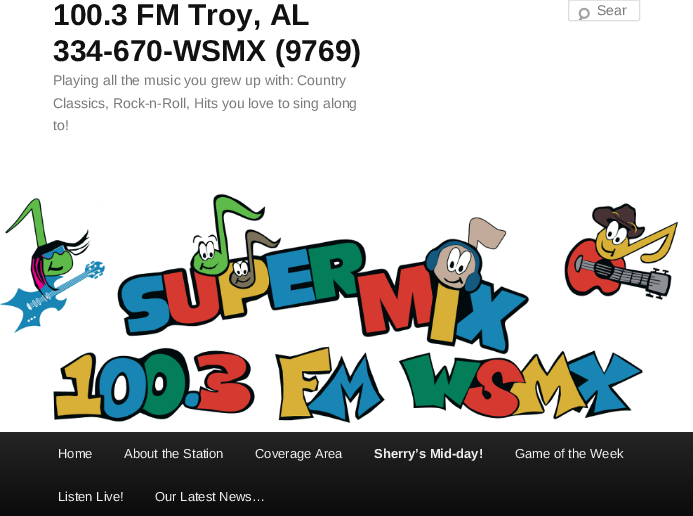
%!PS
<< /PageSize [693 516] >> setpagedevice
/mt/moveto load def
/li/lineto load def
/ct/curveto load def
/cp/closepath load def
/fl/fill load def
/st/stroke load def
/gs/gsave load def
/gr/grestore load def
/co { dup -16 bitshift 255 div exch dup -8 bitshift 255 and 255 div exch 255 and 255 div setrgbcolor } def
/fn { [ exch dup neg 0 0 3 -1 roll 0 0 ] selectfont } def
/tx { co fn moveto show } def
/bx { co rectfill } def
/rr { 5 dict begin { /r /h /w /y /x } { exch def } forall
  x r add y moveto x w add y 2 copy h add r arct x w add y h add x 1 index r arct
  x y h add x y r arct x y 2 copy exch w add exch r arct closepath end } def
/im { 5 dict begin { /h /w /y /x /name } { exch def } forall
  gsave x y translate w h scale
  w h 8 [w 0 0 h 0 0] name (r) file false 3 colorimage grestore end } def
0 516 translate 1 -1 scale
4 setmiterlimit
0 0 693 516 16#FFFFFF bx
(media/1.raw) 578 7 12 13 im
16#E6E6E6 co
570 1 mt 638 1 li 639 1 639 1 639 2 ct 639 -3 630 0 627 0 ct 570 0 li 569 0 569 1 569 2 ct 569 1 569 1 570 1 ct cp fl
16#DDDDDD co
568.5 -.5 71 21 1.5 rr st
(media/2.raw) 0 193 693 239 im
gs 0 432 mt 693 432 li 693 516 li 0 516 li cp clip newpath
<< /ShadingType 2 /ColorSpace /DeviceRGB /Coords [347 432 347 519] /Extend [true true] /Function << /FunctionType 2 /Domain [0 1] /C0 [.145 .145 .145] /C1 [.039 .039 .039] /N 1 >> >> shfill gr
(100.3 FM Troy, AL) 53 25 /LiberationSans-Bold 30 16#111111 tx
(334-670-WSMX \(9769\)) 53 61 /LiberationSans-Bold 30 16#111111 tx
(Playing all the music you grew up with: Country) 53 85 /LiberationSans-Regular 14 16#7A7A7A tx
(Classics, Rock-n-Roll, Hits you love to sing along) 53 108 /LiberationSans-Regular 14 16#7A7A7A tx
(to!) 53 130 /LiberationSans-Regular 14 16#7A7A7A tx
(Sear) 597 15 /LiberationSans-Regular 14 16#7A7A7A tx
(Home) 58 458 /LiberationSans-Regular 13 16#EEEEEE tx
(About the Station) 124 458 /LiberationSans-Regular 13 16#EEEEEE tx
(Coverage Area) 255 458 /LiberationSans-Regular 13 16#EEEEEE tx
(Sherry’s Mid-day!) 374 458 /LiberationSans-Bold 13 16#EEEEEE tx
(Game of the Week) 515 458 /LiberationSans-Regular 13 16#EEEEEE tx
(Listen Live!) 58 501 /LiberationSans-Regular 13 16#EEEEEE tx
(Our Latest News…) 155 501 /LiberationSans-Regular 13 16#EEEEEE tx
showpage
